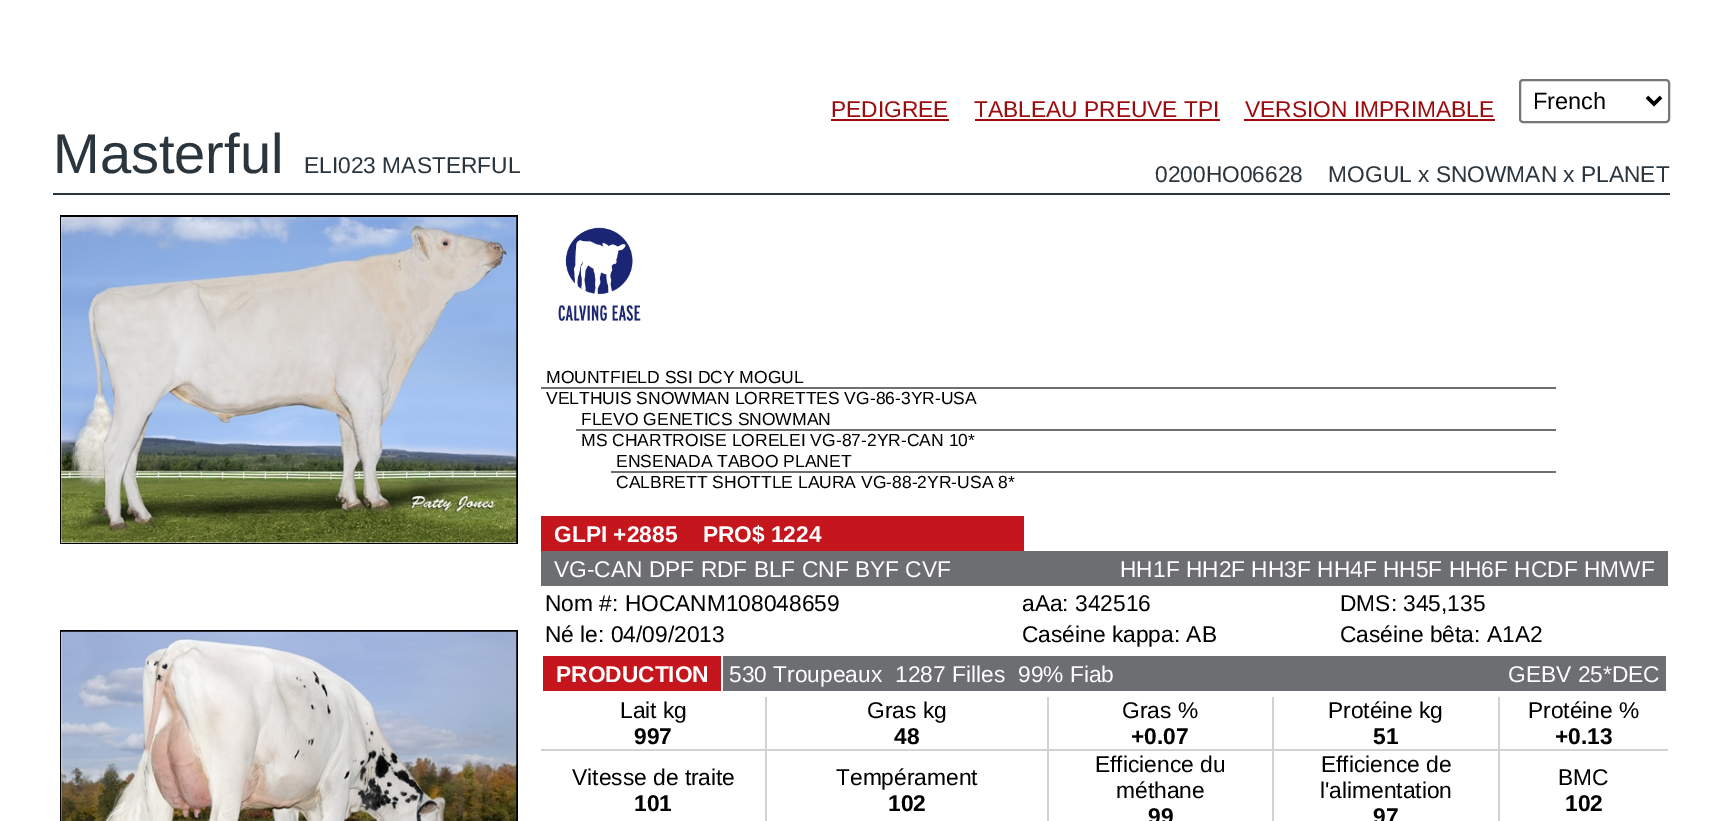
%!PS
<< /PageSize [1722 821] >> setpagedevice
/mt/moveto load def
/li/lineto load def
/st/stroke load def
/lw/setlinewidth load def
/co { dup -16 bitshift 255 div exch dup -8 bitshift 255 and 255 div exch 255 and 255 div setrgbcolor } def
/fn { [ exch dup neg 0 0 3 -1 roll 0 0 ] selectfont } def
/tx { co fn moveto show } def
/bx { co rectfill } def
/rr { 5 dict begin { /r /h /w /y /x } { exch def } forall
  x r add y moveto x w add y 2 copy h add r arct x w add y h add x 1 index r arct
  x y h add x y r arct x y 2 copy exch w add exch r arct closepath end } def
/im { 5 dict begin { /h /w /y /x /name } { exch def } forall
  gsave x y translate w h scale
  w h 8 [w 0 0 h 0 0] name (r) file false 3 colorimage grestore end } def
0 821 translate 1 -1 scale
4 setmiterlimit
0 0 1722 821 16#FFFFFF bx
831 119 118 2 16#9D0B0E bx
975 119 245 2 16#9D0B0E bx
1244 119 251 2 16#9D0B0E bx
16#767676 co
2 lw
1520 80 149 42 3 rr st
16#000000 co
3.5 lw
1647 97 mt 1654 104 li 1661 97 li st
53 193 1617 2 16#2A353E bx
60 215 458 329 16#000000 bx
61 217 455 326 16#FFFFFF bx
(media/1.raw) 61 217 456 326 im
60 630 458 191 16#000000 bx
(media/2.raw) 61 631 456 190 im
(media/3.raw) 558 227 83 95 im
541 387 1015 2 16#6F6E70 bx
576 429 980 2 16#6F6E70 bx
611 471 945 2 16#6F6E70 bx
541 516 483 35 16#C4161C bx
541 551 1127 35 16#6D6E71 bx
543 656 178 35 16#C4161C bx
723 656 943 35 16#6D6E71 bx
765 697 2 52 16#D1D2D4 bx
1047 697 2 52 16#D1D2D4 bx
1272 697 2 52 16#D1D2D4 bx
1498 697 2 52 16#D1D2D4 bx
541 749 1127 2 16#D1D2D4 bx
765 751 2 70 16#D1D2D4 bx
1047 751 2 70 16#D1D2D4 bx
1272 751 2 70 16#D1D2D4 bx
1498 751 2 70 16#D1D2D4 bx
(PEDIGREE) 831 117 /LiberationSans-Regular 22.75 16#9D0B0E tx
(TABLEAU PREUVE TPI) 974 117 /LiberationSans-Regular 22.75 16#9D0B0E tx
(VERSION IMPRIMABLE) 1245 117 /LiberationSans-Regular 22.75 16#9D0B0E tx
(French) 1533 109 /LiberationSans-Regular 23.5 16#000000 tx
(Masterful) 53 173 /LiberationSans-Regular 56 16#2A353E tx
(ELI023 MASTERFUL) 304 173 /LiberationSans-Regular 22.75 16#2A353E tx
(0200HO06628    MOGUL x SNOWMAN x PLANET) 1155 182 /LiberationSans-Regular 22.75 16#2A353E tx
(MOUNTFIELD SSI DCY MOGUL) 546 383 /LiberationSans-Regular 17.5 16#000000 tx
(VELTHUIS SNOWMAN LORRETTES VG-86-3YR-USA) 546 404 /LiberationSans-Regular 17.5 16#000000 tx
(FLEVO GENETICS SNOWMAN) 581 425 /LiberationSans-Regular 17.5 16#000000 tx
(MS CHARTROISE LORELEI VG-87-2YR-CAN 10*) 581 446 /LiberationSans-Regular 17.5 16#000000 tx
(ENSENADA TABOO PLANET) 616 467 /LiberationSans-Regular 17.5 16#000000 tx
(CALBRETT SHOTTLE LAURA VG-88-2YR-USA 8*) 616 488 /LiberationSans-Regular 17.5 16#000000 tx
(GLPI +2885    PRO$ 1224) 554 542 /LiberationSans-Bold 22.75 16#FFFFFF tx
(VG-CAN DPF RDF BLF CNF BYF CVF) 554 577 /LiberationSans-Regular 22.75 16#FFFFFF tx
(HH1F HH2F HH3F HH4F HH5F HH6F HCDF HMWF) 1120 577 /LiberationSans-Regular 22.75 16#FFFFFF tx
(Nom #: HOCANM108048659) 545 611 /LiberationSans-Regular 22.75 16#000000 tx
(aAa: 342516) 1022 611 /LiberationSans-Regular 22.75 16#000000 tx
(DMS: 345,135) 1340 611 /LiberationSans-Regular 22.75 16#000000 tx
(Né le: 04/09/2013) 545 642 /LiberationSans-Regular 22.75 16#000000 tx
(Caséine kappa: AB) 1022 642 /LiberationSans-Regular 22.75 16#000000 tx
(Caséine bêta: A1A2) 1340 642 /LiberationSans-Regular 22.75 16#000000 tx
(PRODUCTION) 556 682 /LiberationSans-Bold 22.75 16#FFFFFF tx
(530 Troupeaux) 729 682 /LiberationSans-Regular 22.75 16#FFFFFF tx
(1287 Filles) 895 682 /LiberationSans-Regular 22.75 16#FFFFFF tx
(99% Fiab) 1018 682 /LiberationSans-Regular 22.75 16#FFFFFF tx
(GEBV 25*DEC) 1508 682 /LiberationSans-Regular 22.75 16#FFFFFF tx
(Lait kg) 620 718 /LiberationSans-Regular 22.75 16#000000 tx
(997) 634 744 /LiberationSans-Bold 22.75 16#000000 tx
(Gras kg) 867 718 /LiberationSans-Regular 22.75 16#000000 tx
(48) 894 744 /LiberationSans-Bold 22.75 16#000000 tx
(Gras %) 1122 718 /LiberationSans-Regular 22.75 16#000000 tx
(+0.07) 1131 744 /LiberationSans-Bold 22.75 16#000000 tx
(Protéine kg) 1328 718 /LiberationSans-Regular 22.75 16#000000 tx
(51) 1373 744 /LiberationSans-Bold 22.75 16#000000 tx
(Protéine %) 1528 718 /LiberationSans-Regular 22.75 16#000000 tx
(+0.13) 1555 744 /LiberationSans-Bold 22.75 16#000000 tx
(Vitesse de traite) 572 785 /LiberationSans-Regular 22.75 16#000000 tx
(101) 634 811 /LiberationSans-Bold 22.75 16#000000 tx
(Tempérament) 836 785 /LiberationSans-Regular 22.75 16#000000 tx
(102) 888 811 /LiberationSans-Bold 22.75 16#000000 tx
(Efficience du) 1095 772 /LiberationSans-Regular 22.75 16#000000 tx
(méthane) 1116 798 /LiberationSans-Regular 22.75 16#000000 tx
(99) 1148 824 /LiberationSans-Bold 22.75 16#000000 tx
(Efficience de) 1321 772 /LiberationSans-Regular 22.75 16#000000 tx
(l'alimentation) 1320 798 /LiberationSans-Regular 22.75 16#000000 tx
(97) 1373 824 /LiberationSans-Bold 22.75 16#000000 tx
(BMC) 1558 785 /LiberationSans-Regular 22.75 16#000000 tx
(102) 1565 811 /LiberationSans-Bold 22.75 16#000000 tx
showpage
